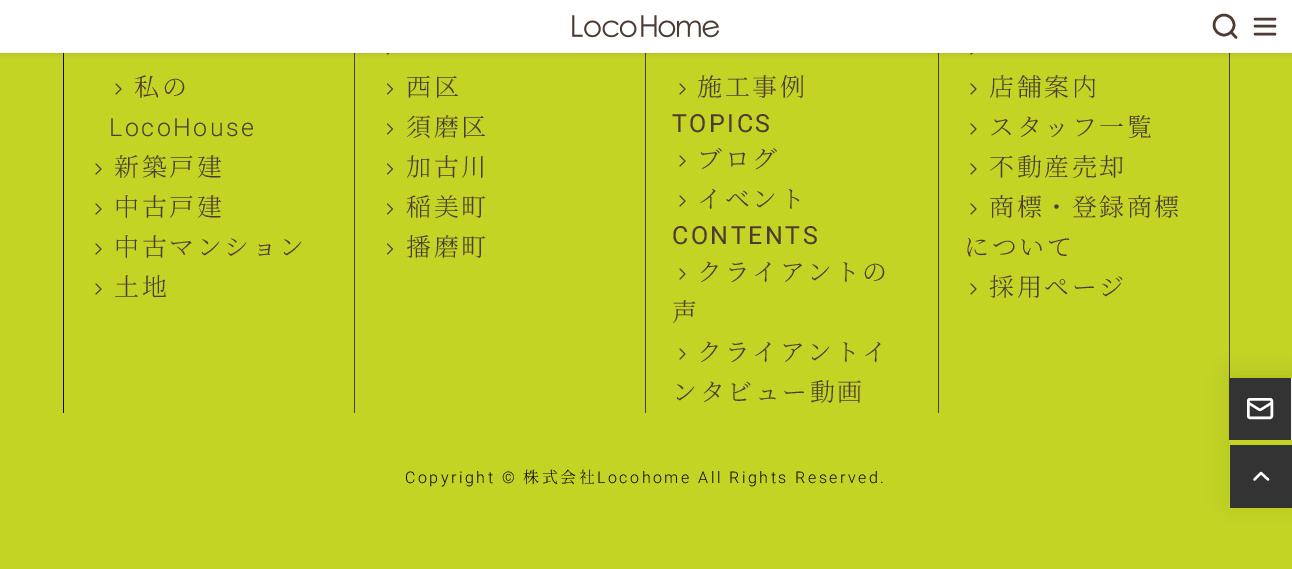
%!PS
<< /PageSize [1292 569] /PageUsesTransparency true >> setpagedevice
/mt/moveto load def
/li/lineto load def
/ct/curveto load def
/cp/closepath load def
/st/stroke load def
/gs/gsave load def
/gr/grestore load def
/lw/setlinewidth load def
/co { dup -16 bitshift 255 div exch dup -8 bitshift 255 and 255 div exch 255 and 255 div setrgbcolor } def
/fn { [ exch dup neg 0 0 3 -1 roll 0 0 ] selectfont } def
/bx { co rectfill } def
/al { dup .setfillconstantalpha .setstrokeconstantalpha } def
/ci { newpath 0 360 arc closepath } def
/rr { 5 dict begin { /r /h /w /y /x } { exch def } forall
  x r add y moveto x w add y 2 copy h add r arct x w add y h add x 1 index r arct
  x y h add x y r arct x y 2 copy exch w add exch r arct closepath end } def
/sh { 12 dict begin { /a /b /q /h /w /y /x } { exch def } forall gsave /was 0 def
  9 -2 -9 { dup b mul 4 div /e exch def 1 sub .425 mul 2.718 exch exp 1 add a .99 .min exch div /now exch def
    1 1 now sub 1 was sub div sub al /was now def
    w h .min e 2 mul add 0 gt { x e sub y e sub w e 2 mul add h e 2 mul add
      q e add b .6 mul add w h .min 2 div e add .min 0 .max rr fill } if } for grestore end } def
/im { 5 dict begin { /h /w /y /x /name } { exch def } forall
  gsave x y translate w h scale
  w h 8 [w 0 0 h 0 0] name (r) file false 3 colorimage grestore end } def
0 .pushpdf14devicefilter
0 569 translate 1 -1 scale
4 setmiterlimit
0 0 1292 569 16#C3D425 bx
354 53 1 360 16#4D3A33 bx
63 53 1 360 16#0C0908 bx
645 53 1 360 16#4D3A33 bx
.8 lw
1 setlinecap
1 setlinejoin
387.5 54 mt 392.5 49 li 387.5 44 li 387.5 94 mt 392.5 89 li 387.5 84 li st
938 53 1 360 16#4D3A33 bx
1229 53 1 325 16#4D3A33 bx
971 54 mt 976 49 li 971 44 li 971 94 mt 976 89 li 971 84 li st
16#000000 co
0 1 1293 53 0 2 .1 sh
0 0 1292 53 16#FFFFFF bx
(media/1.raw) 572 15 148 23 im
16#4D3A33 co
2.5 lw
1236 37.5 mt 1231 32 li st
0 setlinecap
0 setlinejoin
1224 25 10 ci st
1 setlinecap
1 setlinejoin
1255 26 mt 1275 26 li 1255 34 mt 1275 34 li 1255 19 mt 1275 19 li st
.8 lw
116 94 mt 121 89 li 116 84 li st
96 174 mt 101 169 li 96 164 li 96 214 mt 101 209 li 96 204 li st
96 254 mt 101 249 li 96 244 li 96 294 mt 101 289 li 96 284 li st
387.5 134 mt 392.5 129 li 387.5 124 li 387.5 174 mt 392.5 169 li 387.5 164 li st
387.5 214 mt 392.5 209 li 387.5 204 li 387.5 254 mt 392.5 249 li 387.5 244 li st
680 94 mt 685 89 li 680 84 li st
680 166 mt 685 161 li 680 156 li 680 206 mt 685 201 li 680 196 li st
680 279 mt 685 274 li 680 269 li st
680 359 mt 685 354 li 680 349 li st
971 134 mt 976 129 li 971 124 li 971 174 mt 976 169 li 971 164 li st
971 214 mt 976 209 li 971 204 li st
971 294 mt 976 289 li 971 284 li st
gs
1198 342 mt 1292 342 li 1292 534 li 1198 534 li cp 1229 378 mt 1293 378 li 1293 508 li 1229 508 li cp eoclip newpath
16#000000 co
1229 373 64 130 0 10 .08 sh
gr
1291 378 1 62 16#F5F8F2 bx
1229 378 62 62 16#333333 bx
16#FFFFFF co
2.3 lw
1271.5 403 mt 1261 409.5 li 1260.5 410 1259.5 410 1259 409.5 ct 1248.5 403 li st
2.5 lw
0 setlinecap
0 setlinejoin
1248.25 399.25 23.5 18.5 1.75 rr st
1230 445 62 63 16#333333 bx
16#FFFFFF co
2.3 lw
1 setlinecap
1 setlinejoin
1268 479.5 mt 1261 473 li 1254.5 479.5 li st
/NotoSerifJP-Light 25 fn
16#4D3A33 co
134 96 mt 2.5 0 (私の) ashow
/Roboto-Light 25 fn
109 136 mt 2.5 0 (LocoHouse) ashow
/NotoSerifJP-Light 25 fn
114 176 mt 2.5 0 (新築戸建) ashow
114 216 mt 2.5 0 (中古戸建) ashow
114 256 mt 2.5 0 (中古マンション) ashow
114 296 mt 2.5 0 (土地) ashow
406 96 mt 2.5 0 (西区) ashow
406 136 mt 2.5 0 (須磨区) ashow
406 176 mt 2.5 0 (加古川) ashow
406 216 mt 2.5 0 (稲美町) ashow
406 256 mt 2.5 0 (播磨町) ashow
697 96 mt 2.5 0 (施工事例) ashow
/Roboto-Regular 25 fn
672 132 mt 2.5 0 (TOPICS) ashow
/NotoSerifJP-Light 25 fn
697 168 mt 2.5 0 (ブログ) ashow
697 208 mt 2.5 0 (イベント) ashow
/Roboto-Regular 25 fn
672 244 mt 2.5 0 (CONTENTS) ashow
/NotoSerifJP-Light 25 fn
697 281 mt 2.5 0 (クライアントの) ashow
672 321 mt 2.5 0 (声) ashow
697 361 mt 2.5 0 (クライアントイ) ashow
672 401 mt 2.5 0 (ンタビュー動画) ashow
989 96 mt 2.5 0 (店舗案内) ashow
989 136 mt 2.5 0 (スタッフ一覧) ashow
989 176 mt 2.5 0 (不動産売却) ashow
989 216 mt 2.5 0 (商標・登録商標) ashow
964 256 mt 2.5 0 (について) ashow
989 296 mt 2.5 0 (採用ページ) ashow
/Roboto-Light 16 fn
16#0C0908 co
405 483 mt 2.5 0 (Copyright ©) ashow
/NotoSerifJP-Light 16 fn
523 483 mt 2.5 0 (株式会社) ashow
/Roboto-Light 16 fn
597 483 mt 2.5 0 (Locohome All Rights Reserved.) ashow
.poppdf14devicefilter showpage
